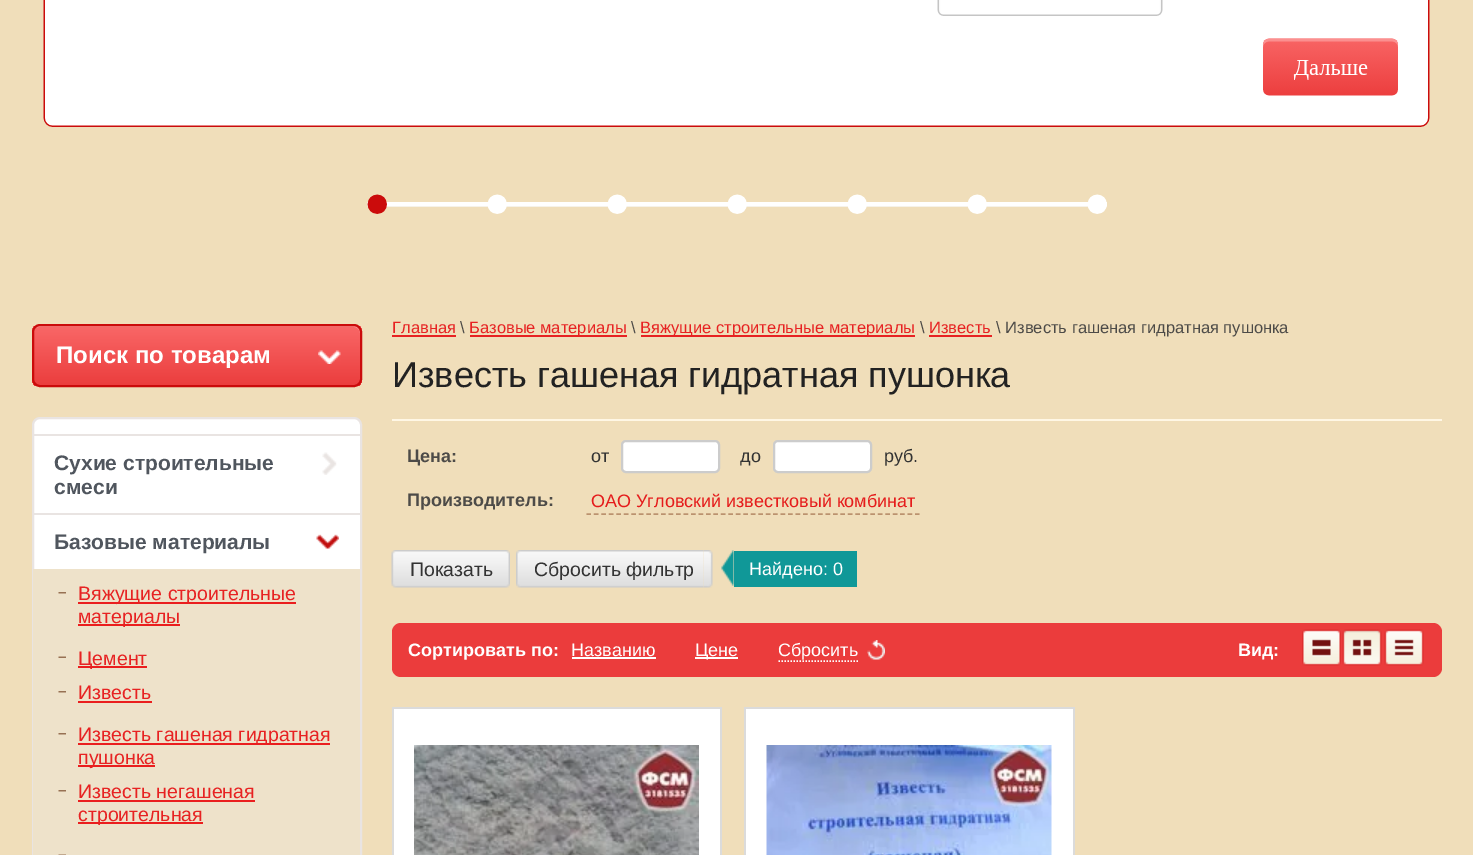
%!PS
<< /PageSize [1473 855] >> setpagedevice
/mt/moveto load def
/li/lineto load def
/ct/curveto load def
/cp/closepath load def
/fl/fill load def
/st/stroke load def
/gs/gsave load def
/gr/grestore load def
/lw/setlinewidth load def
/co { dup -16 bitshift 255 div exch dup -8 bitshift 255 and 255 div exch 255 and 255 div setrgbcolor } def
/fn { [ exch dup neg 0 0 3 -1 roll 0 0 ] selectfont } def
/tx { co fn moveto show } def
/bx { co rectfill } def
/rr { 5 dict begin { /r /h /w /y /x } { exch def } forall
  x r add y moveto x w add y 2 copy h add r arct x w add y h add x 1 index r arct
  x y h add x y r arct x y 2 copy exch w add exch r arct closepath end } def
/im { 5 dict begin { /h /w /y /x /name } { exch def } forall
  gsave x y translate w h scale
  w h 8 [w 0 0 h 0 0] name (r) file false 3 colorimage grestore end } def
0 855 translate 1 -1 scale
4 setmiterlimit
0 0 1473 855 16#F0DEBA bx
(media/1.raw) 43 0 1387 214 im
gs
32 324 330 63 8 rr clip newpath
gs 32 326 mt 362 326 li 362 386 li 32 386 li cp clip newpath
<< /ShadingType 2 /ColorSpace /DeviceRGB /Coords [197 326 197 386] /Extend [true true] /Function << /FunctionType 2 /Domain [0 1] /C0 [.976 .404 .404] /C1 [.922 .239 .239] /N 1 >> >> shfill gr
gr
16#FB9090 co
39 327 mt 354 327 li 357 327 360 330 360 333 ct 360 332 li 360 329 357 326 354 326 ct 39 326 li 36 326 33 329 33 332 ct 33 333 li 33 330 36 327 39 327 ct cp fl
16#CB0B0B co
2 lw
33 325 328 61 7 rr st
(media/2.raw) 318 350 23 14 im
16#FFFFFF co
33 418 328 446 7 rr gs fl gr
16#E9E4E2 co
st
33 434 327 2 16#E9E4E2 bx
33 513 327 2 16#E9E4E2 bx
(media/3.raw) 322 452 15 23 im
(media/4.raw) 316 534 23 15 im
33 569 327 286 16#EEE2CA bx
(media/5.raw) 58 592 8 2 im
78 602 218 2 16#EA1E1E bx
78 624 102 2 16#EA1E1E bx
(media/6.raw) 58 656 8 2 im
78 666 69 2 16#EA1E1E bx
(media/5.raw) 58 691 8 2 im
78 701 74 2 16#EA1E1E bx
(media/5.raw) 58 733 8 2 im
78 743 252 2 16#EA1E1E bx
78 765 77 2 16#EA1E1E bx
(media/5.raw) 58 790 8 2 im
78 800 177 2 16#EA1E1E bx
78 822 125 2 16#EA1E1E bx
(media/7.raw) 58 854 8 1 im
392 335 64 2 16#E72222 bx
470 335 157 2 16#E72222 bx
641 335 274 2 16#E72222 bx
929 335 63 2 16#E72222 bx
392 419 1050 2 16#FFF7E5 bx
16#FFFFFF co
622 441 97 31 4 rr gs fl gr
16#CCCCCC co
st
16#FFFFFF co
774 441 97 31 4 rr gs fl gr
16#CCCCCC co
st
16#BB926F co
1.5 lw
[4.5 2.97] 0 setdash
586.5 514 mt 919.5 514 li st
(media/8.raw) 391 550 110 38 im
(media/9.raw) 501 550 9 38 im
(media/10.raw) 516 550 188 38 im
(media/11.raw) 703 550 10 38 im
734 551 123 36 16#109898 bx
(media/12.raw) 721 550 13 36 im
16#EB3C3C co
392 623 1050 54 9 rr fl
572 657 84 2 16#FFFFFF bx
695 657 43 2 16#FFFFFF bx
[1.5 1.5] 0 setdash
778.5 661 mt 858 661 li st
(media/13.raw) 867 640 18 20 im
(media/14.raw) 1302 629 39 37 im
(media/15.raw) 1342 629 40 37 im
(media/16.raw) 1384 629 40 37 im
394 709 326 146 16#FFFFFF bx
392 707 330 2 16#DBDBDB bx
720 707 2 148 16#DBDBDB bx
392 707 2 148 16#DBDBDB bx
(media/17.raw) 414 745 285 110 im
746 709 327 146 16#FFFFFF bx
744 707 330 2 16#DBDBDB bx
1073 707 2 148 16#DBDBDB bx
744 707 2 148 16#DBDBDB bx
(media/18.raw) 766 745 286 110 im
(Поиск по товарам) 56 363 /LiberationSans-Bold 24 16#FFFFFF tx
(Сухие строительные) 54 470 /LiberationSans-Bold 21 16#50565E tx
(смеси) 54 494 /LiberationSans-Bold 21 16#50565E tx
(Базовые материалы) 54 549 /LiberationSans-Bold 21 16#50565E tx
(Вяжущие строительные) 78 600 /LiberationSans-Regular 19.5 16#E72222 tx
(материалы) 78 623 /LiberationSans-Regular 19.5 16#E72222 tx
(Цемент) 78 665 /LiberationSans-Regular 19.5 16#E72222 tx
(Известь) 78 699 /LiberationSans-Regular 19.5 16#E72222 tx
(Известь гашеная гидратная) 78 741 /LiberationSans-Regular 19.5 16#E72222 tx
(пушонка) 78 764 /LiberationSans-Regular 19.5 16#E72222 tx
(Известь негашеная) 78 798 /LiberationSans-Regular 19.5 16#E72222 tx
(строительная) 78 821 /LiberationSans-Regular 19.5 16#E72222 tx
(Главная) 392 333 /LiberationSans-Regular 16.5 16#E72222 tx
(\\) 460 333 /LiberationSans-Regular 16.5 16#4D4B48 tx
(Базовые материалы) 469 333 /LiberationSans-Regular 16.5 16#E72222 tx
(\\) 631 333 /LiberationSans-Regular 16.5 16#4D4B48 tx
(Вяжущие строительные материалы) 640 333 /LiberationSans-Regular 16.5 16#E72222 tx
(\\) 920 333 /LiberationSans-Regular 16.5 16#4D4B48 tx
(Известь) 929 333 /LiberationSans-Regular 16.5 16#E72222 tx
(\\ Известь гашеная гидратная пушонка) 996 333 /LiberationSans-Regular 16.5 16#4D4B48 tx
(Известь гашеная гидратная пушонка) 392 387 /LiberationSans-Regular 36 16#222222 tx
(Цена:) 407 462 /LiberationSans-Bold 18 16#4D4B48 tx
(от) 591 462 /LiberationSans-Regular 18 16#333333 tx
(до) 740 462 /LiberationSans-Regular 18 16#333333 tx
(руб.) 884 462 /LiberationSans-Regular 18 16#333333 tx
(Производитель:) 407 506 /LiberationSans-Bold 18 16#4D4B48 tx
(ОАО Угловский известковый комбинат) 591 507 /LiberationSans-Regular 18 16#E51C1C tx
(Показать) 410 576 /LiberationSans-Regular 19.5 16#333333 tx
(Сбросить фильтр) 534 576 /LiberationSans-Regular 19.5 16#333333 tx
(Найдено: 0) 749 575 /LiberationSans-Regular 18 16#FFFFFF tx
(Сортировать по:) 408 656 /LiberationSans-Bold 18 16#FFFFFF tx
(Названию) 571 656 /LiberationSans-Regular 18 16#FFFFFF tx
(Цене) 695 656 /LiberationSans-Regular 18 16#FFFFFF tx
(Сбросить) 778 656 /LiberationSans-Regular 18 16#FFFFFF tx
(Вид:) 1238 656 /LiberationSans-Bold 18 16#FFFFFF tx
showpage
